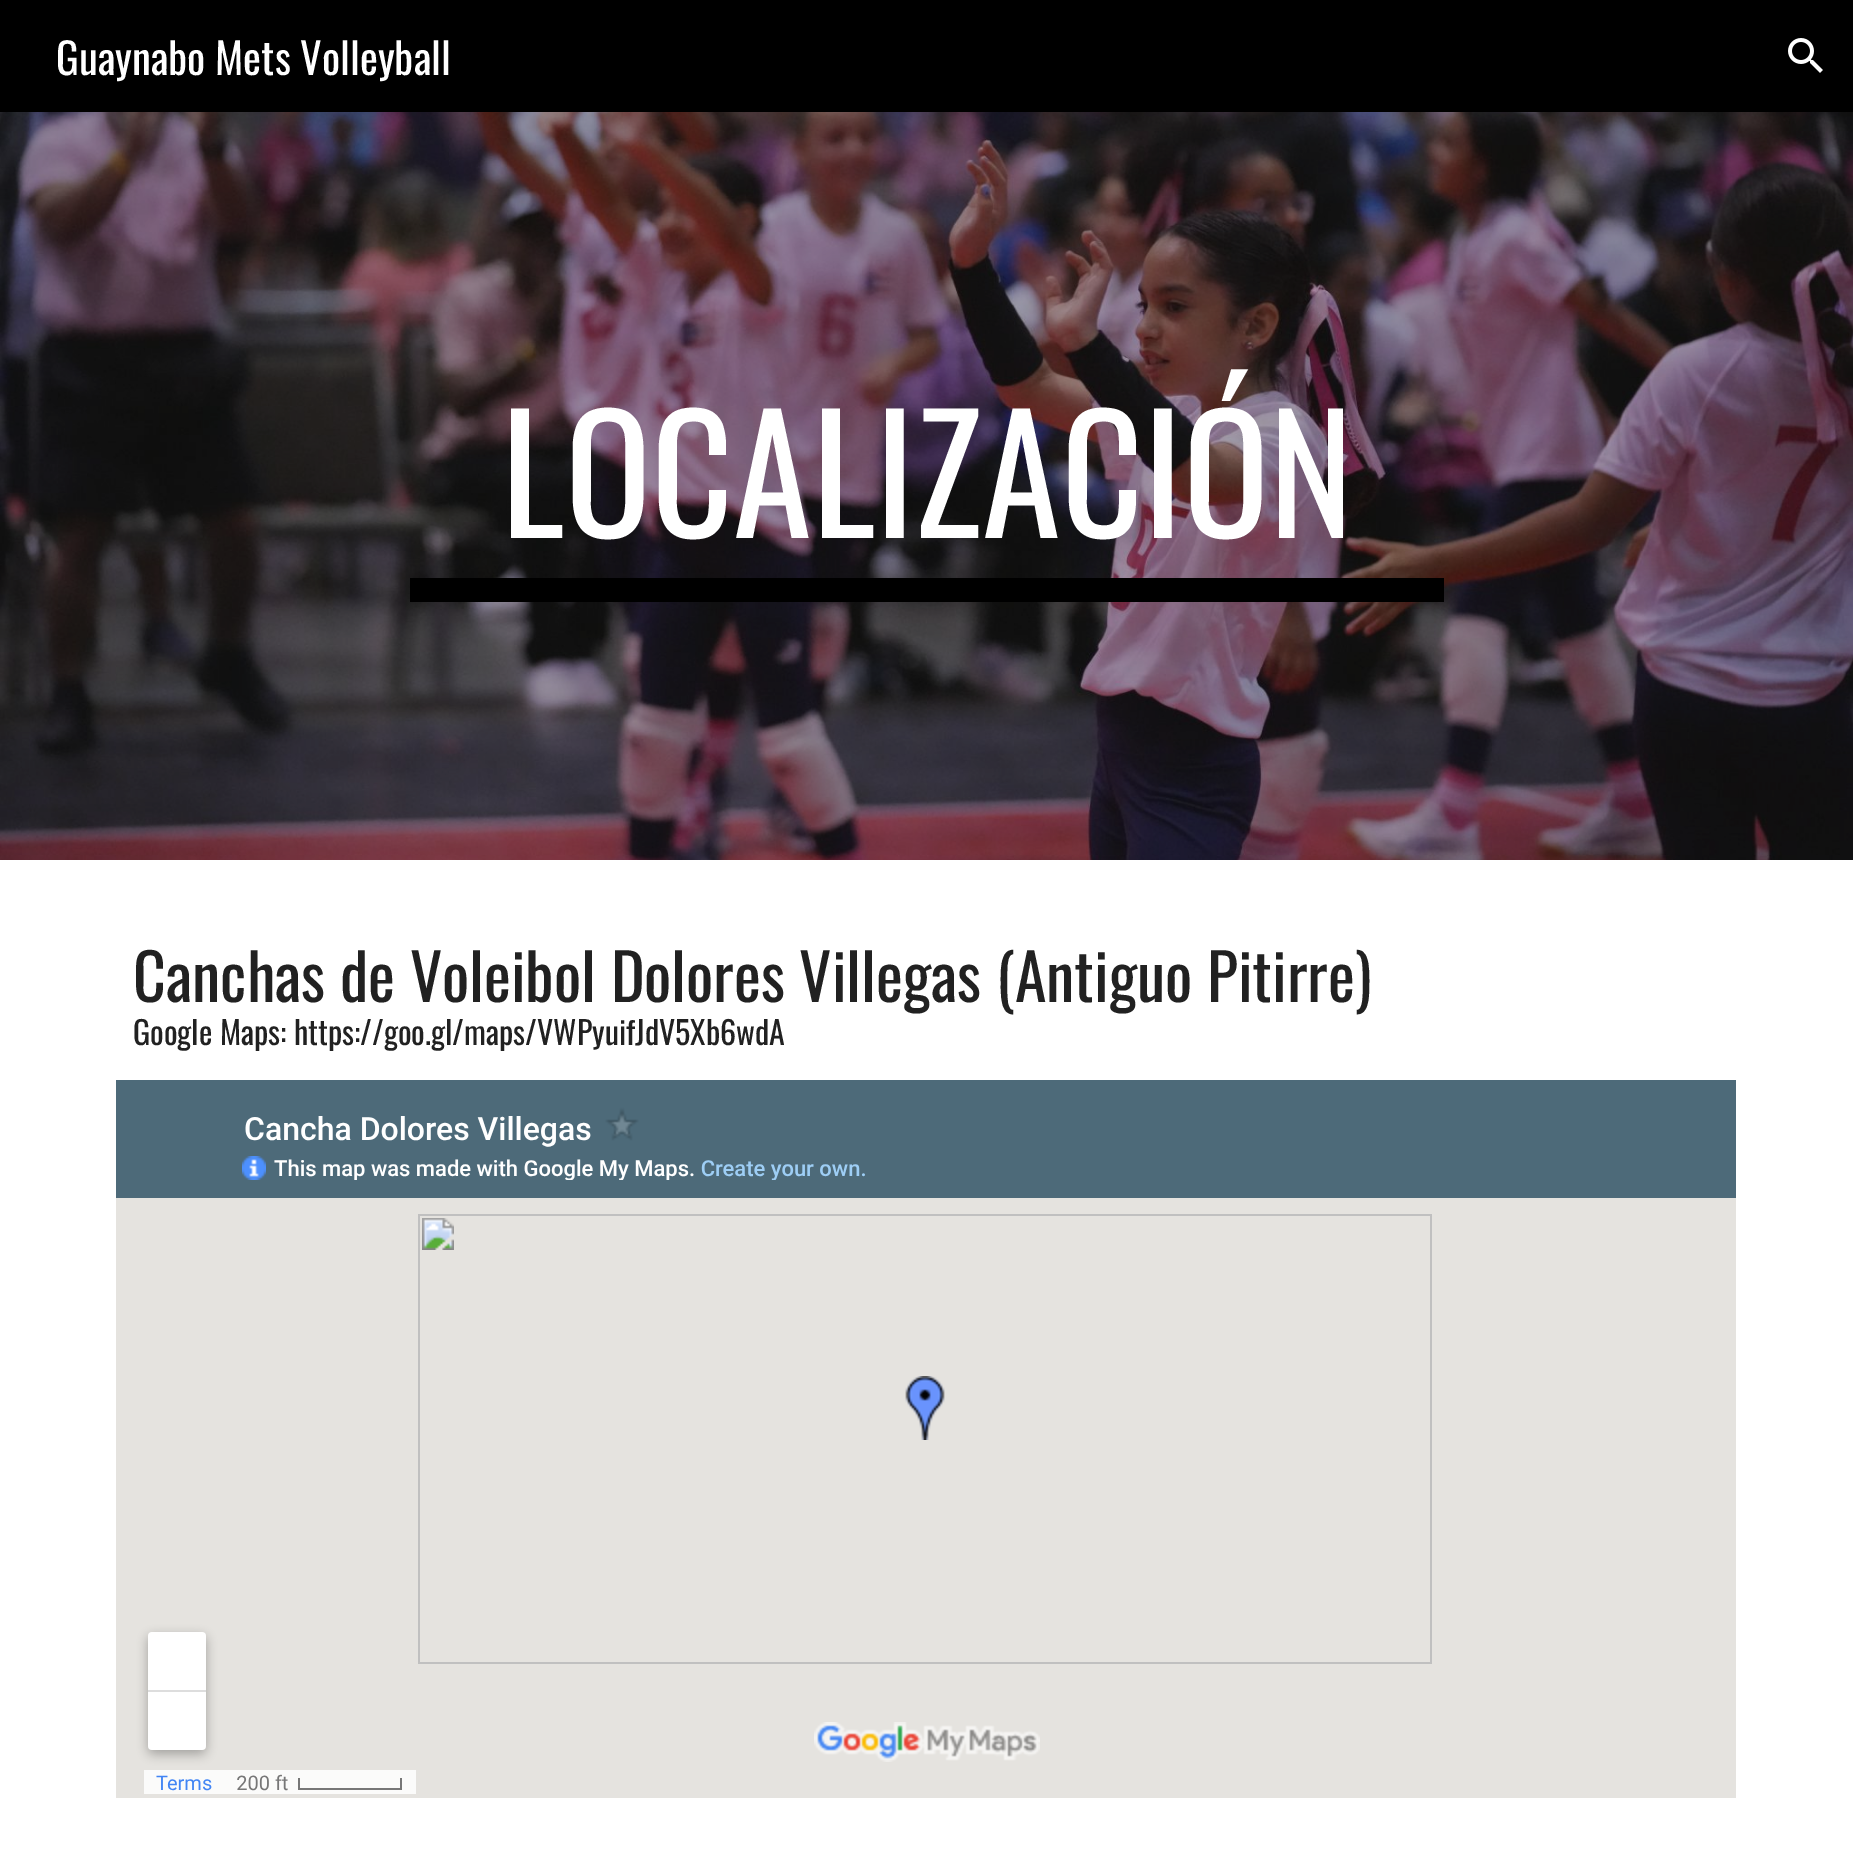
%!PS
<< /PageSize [1853 1853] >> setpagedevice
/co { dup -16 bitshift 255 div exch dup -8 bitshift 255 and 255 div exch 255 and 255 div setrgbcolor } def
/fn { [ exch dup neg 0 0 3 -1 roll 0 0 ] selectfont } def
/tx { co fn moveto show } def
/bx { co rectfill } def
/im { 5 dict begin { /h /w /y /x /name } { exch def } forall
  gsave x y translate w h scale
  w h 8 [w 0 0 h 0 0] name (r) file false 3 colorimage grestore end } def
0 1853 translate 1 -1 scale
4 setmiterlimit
0 0 1853 1853 16#FFFFFF bx
0 0 1853 112 16#000000 bx
(media/1.raw) 1788 38 35 35 im
(media/2.raw) 0 112 1853 748 im
410 578 1034 24 16#000000 bx
(media/3.raw) 116 1080 1620 718 im
(Guaynabo Mets Volleyball) 56 75 /Oswald-Regular 42.75 16#FFFFFF tx
(LOCALIZACIÓN) 501 538 /Oswald-Regular 160 16#FFFFFF tx
(Canchas de Voleibol Dolores Villegas \(Antiguo Pitirre\)) 133 1002 /Oswald-Regular 64 16#212121 tx
(Google Maps: https://goo.gl/maps/VWPyuifJdV5Xb6wdA) 133 1045 /Oswald-Regular 32 16#212121 tx
showpage
